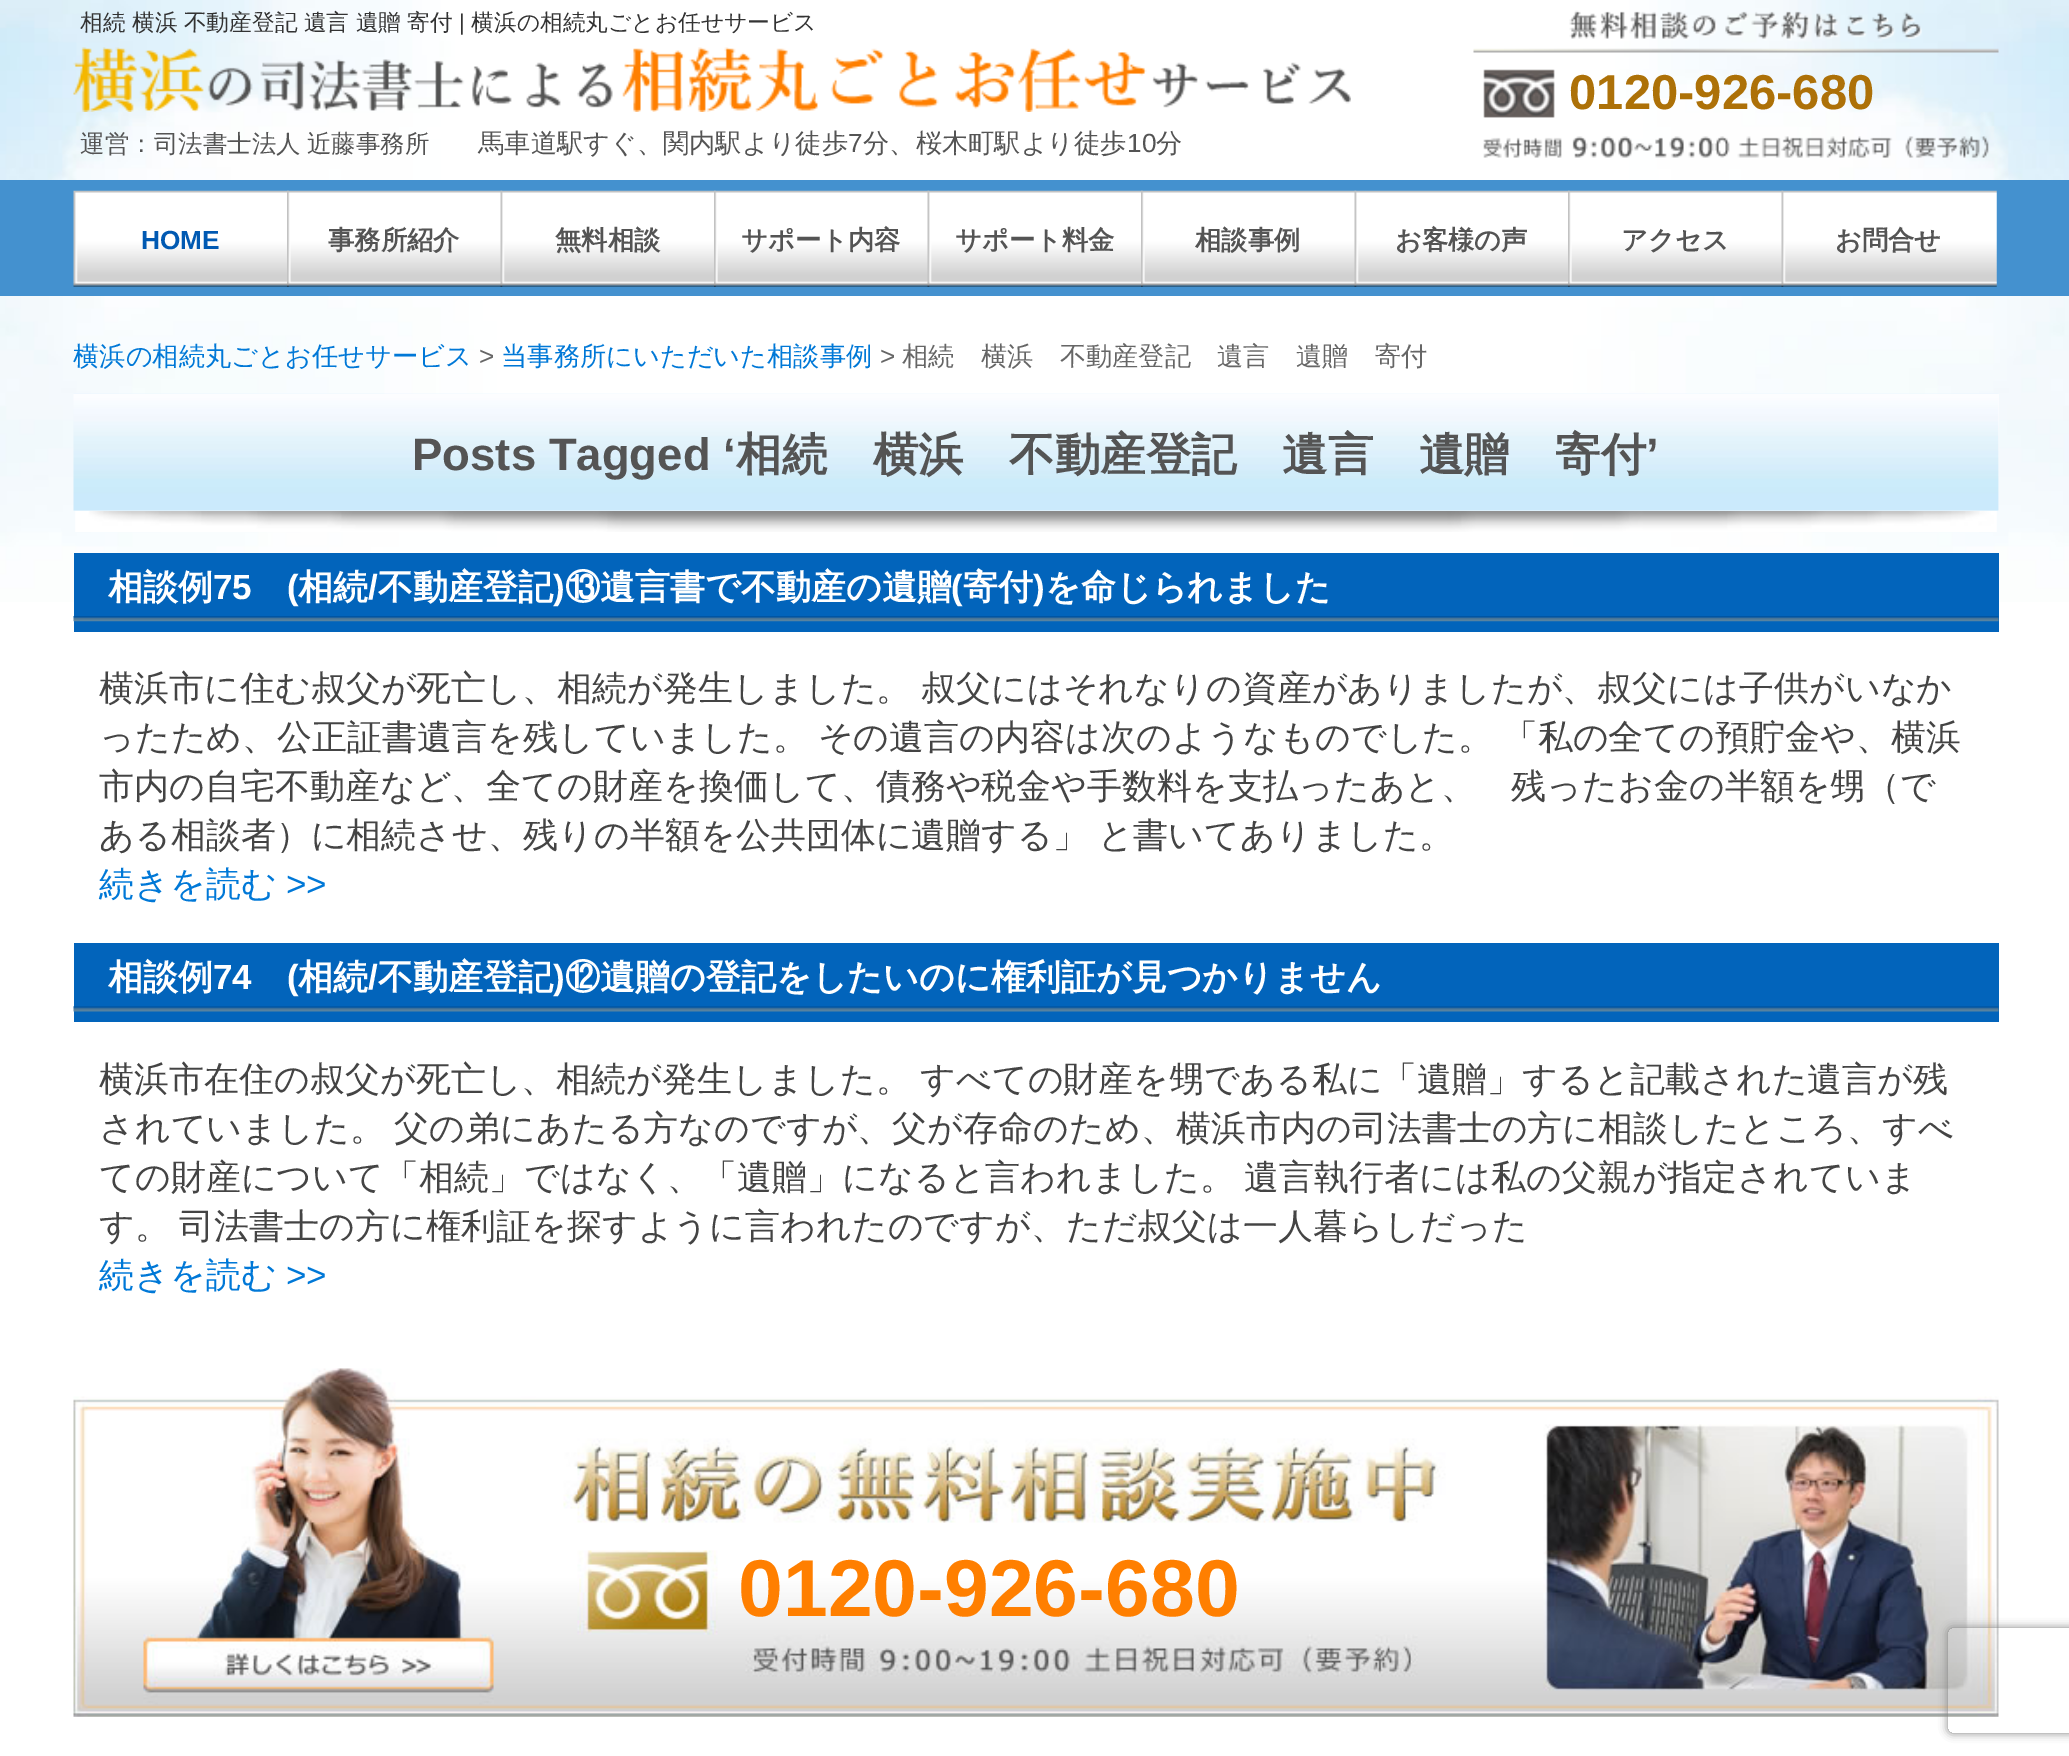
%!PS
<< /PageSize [2069 1756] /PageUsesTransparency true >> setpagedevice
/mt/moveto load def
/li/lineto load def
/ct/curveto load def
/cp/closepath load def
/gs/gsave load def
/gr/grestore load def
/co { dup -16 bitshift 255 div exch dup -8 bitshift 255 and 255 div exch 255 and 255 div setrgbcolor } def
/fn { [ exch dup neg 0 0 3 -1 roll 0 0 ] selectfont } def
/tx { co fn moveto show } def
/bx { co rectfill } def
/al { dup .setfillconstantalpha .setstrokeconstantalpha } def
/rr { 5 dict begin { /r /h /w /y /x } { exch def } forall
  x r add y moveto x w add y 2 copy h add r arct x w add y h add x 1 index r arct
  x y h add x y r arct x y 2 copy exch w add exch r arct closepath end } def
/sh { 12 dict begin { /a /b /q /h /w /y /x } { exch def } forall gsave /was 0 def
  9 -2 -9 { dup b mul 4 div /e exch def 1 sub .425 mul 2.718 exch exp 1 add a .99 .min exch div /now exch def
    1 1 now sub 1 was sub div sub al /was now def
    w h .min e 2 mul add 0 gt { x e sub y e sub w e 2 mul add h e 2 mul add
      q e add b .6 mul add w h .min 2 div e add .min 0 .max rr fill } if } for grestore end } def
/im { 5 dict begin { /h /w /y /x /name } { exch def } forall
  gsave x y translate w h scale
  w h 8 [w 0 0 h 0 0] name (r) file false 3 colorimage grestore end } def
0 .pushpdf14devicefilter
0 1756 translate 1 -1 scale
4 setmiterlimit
0 0 2069 1756 16#FFFFFF bx
(media/1.raw) 0 0 2069 602 im
(media/2.raw) 73 47 1278 65 im
(media/3.raw) 1473 10 526 148 im
0 180 2069 116 16#4491CF bx
(media/4.raw) 73 190 216 97 im
(media/5.raw) 287 190 216 97 im
(media/6.raw) 500 190 216 97 im
(media/7.raw) 714 190 216 97 im
(media/6.raw) 927 190 216 97 im
(media/7.raw) 1141 190 216 97 im
(media/6.raw) 1354 190 216 97 im
(media/7.raw) 1568 190 216 97 im
(media/6.raw) 1781 190 216 97 im
1998 394 1 117 16#FDFEFF bx
(media/8.raw) 73 393 1926 118 im
(media/9.raw) 75 511 1922 21 im
74 553 1925 79 16#0264BB bx
(media/10.raw) 73 616 1926 6 im
74 943 1925 79 16#0264BB bx
(media/11.raw) 73 1006 1926 6 im
(media/12.raw) 73 1368 1926 349 im
gs
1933 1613 mt 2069 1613 li 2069 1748 li 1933 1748 li cp 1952 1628 mt 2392 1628 li 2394 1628 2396 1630 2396 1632 ct 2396 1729 li 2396 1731 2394 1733 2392 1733 ct 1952 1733 li 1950 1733 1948 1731 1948 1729 ct 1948 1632 li 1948 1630 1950 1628 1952 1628 ct cp eoclip newpath
16#808080 co
1948 1628 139 105 4 4.5 1 sh
gr
/WenQuanYiZenHei-Medium 22.75 fn
16#333333 co
80 30 mt -.5 0 32 (相続 横浜 不動産登記 遺言 遺贈 寄付) widthshow
(|) 459 30 /LiberationSans-Regular 22.75 16#333333 tx
(横浜の相続丸ごとお任せサービス) 471 30 /WenQuanYiZenHei-Medium 22.75 16#333333 tx
/WenQuanYiZenHei-Medium 24.5 fn
16#545454 co
80 152 mt -1 0 32 (運営：司法書士法人 近藤事務所) widthshow
(馬車道駅すぐ、関内駅より徒歩) 478 152 /WenQuanYiZenHei-Medium 26.25 16#545454 tx
(7) 848 152 /LiberationSans-Regular 26.25 16#545454 tx
(分、桜木町駅より徒歩) 863 152 /WenQuanYiZenHei-Medium 26.25 16#545454 tx
(10) 1127 152 /LiberationSans-Regular 26.25 16#545454 tx
(分) 1156 152 /WenQuanYiZenHei-Medium 26.25 16#545454 tx
(0120-926-680) 1569 109 /LiberationSans-Bold 49 16#AD7108 tx
(HOME) 141 249 /LiberationSans-Bold 26.25 16#0059B2 tx
(事務所紹介) 328 249 /WenQuanYiZenHei-Bold 26.25 16#545454 tx
(無料相談) 555 249 /WenQuanYiZenHei-Bold 26.25 16#545454 tx
(サポート内容) 741 249 /WenQuanYiZenHei-Bold 26.25 16#545454 tx
(サポート料金) 955 249 /WenQuanYiZenHei-Bold 26.25 16#545454 tx
(相談事例) 1195 249 /WenQuanYiZenHei-Bold 26.25 16#545454 tx
(お客様の声) 1395 249 /WenQuanYiZenHei-Bold 26.25 16#545454 tx
(アクセス) 1621 249 /WenQuanYiZenHei-Bold 26.25 16#545454 tx
(お問合せ) 1835 249 /WenQuanYiZenHei-Bold 26.25 16#545454 tx
(横浜の相続丸ごとお任せサービス) 73 365 /WenQuanYiZenHei-Medium 26.25 16#0078D7 tx
(>) 479 365 /LiberationSans-Regular 26.25 16#666666 tx
(当事務所にいただいた相談事例) 501 365 /WenQuanYiZenHei-Medium 26.25 16#0078D7 tx
(>) 880 365 /LiberationSans-Regular 26.25 16#666666 tx
(相続　横浜　不動産登記　遺言　遺贈　寄付) 902 365 /WenQuanYiZenHei-Medium 26.25 16#666666 tx
(Posts Tagged ‘) 412 470 /LiberationSans-Bold 45.5 16#545454 tx
(相続　横浜　不動産登記　遺言　遺贈　寄付) 736 470 /WenQuanYiZenHei-Bold 45.5 16#545454 tx
(’) 1646 470 /LiberationSans-Bold 45.5 16#545454 tx
(相談例) 108 599 /WenQuanYiZenHei-Bold 35 16#FFFFFF tx
(75) 213 599 /LiberationSans-Bold 35 16#FFFFFF tx
(\() 287 599 /LiberationSans-Bold 35 16#FFFFFF tx
(相続) 298 599 /WenQuanYiZenHei-Bold 35 16#FFFFFF tx
(/) 368 599 /LiberationSans-Bold 35 16#FFFFFF tx
(不動産登記) 378 599 /WenQuanYiZenHei-Bold 35 16#FFFFFF tx
(\)) 553 599 /LiberationSans-Bold 35 16#FFFFFF tx
(⑬遺言書で不動産の遺贈) 565 599 /WenQuanYiZenHei-Bold 35 16#FFFFFF tx
(\() 951 599 /LiberationSans-Bold 35 16#FFFFFF tx
(寄付) 963 599 /WenQuanYiZenHei-Bold 35 16#FFFFFF tx
(\)) 1033 599 /LiberationSans-Bold 35 16#FFFFFF tx
(を命じられました) 1045 599 /WenQuanYiZenHei-Bold 35 16#FFFFFF tx
/WenQuanYiZenHei-Medium 35 fn
16#444444 co
99 700 mt -1 0 32 (横浜市に住む叔父が死亡し、相続が発生しました。 叔父にはそれなりの資産がありましたが、叔父には子供がいなか) widthshow
99 749 mt -1 0 32 (ったため、公正証書遺言を残していました。 その遺言の内容は次のようなものでした。 「私の全ての預貯金や、横浜) widthshow
(市内の自宅不動産など、全ての財産を換価して、債務や税金や手数料を支払ったあと、　残ったお金の半額を甥（で) 99 798 /WenQuanYiZenHei-Medium 35 16#444444 tx
99 847 mt -1 0 32 (ある相談者）に相続させ、残りの半額を公共団体に遺贈する」 と書いてありました。) widthshow
(続きを読む) 99 896 /WenQuanYiZenHei-Medium 35 16#0078D7 tx
(>>) 286 896 /LiberationSans-Regular 35 16#0078D7 tx
(相談例) 108 989 /WenQuanYiZenHei-Bold 35 16#FFFFFF tx
(74) 213 989 /LiberationSans-Bold 35 16#FFFFFF tx
(\() 287 989 /LiberationSans-Bold 35 16#FFFFFF tx
(相続) 298 989 /WenQuanYiZenHei-Bold 35 16#FFFFFF tx
(/) 368 989 /LiberationSans-Bold 35 16#FFFFFF tx
(不動産登記) 378 989 /WenQuanYiZenHei-Bold 35 16#FFFFFF tx
(\)) 553 989 /LiberationSans-Bold 35 16#FFFFFF tx
(⑫遺贈の登記をしたいのに権利証が見つかりません) 565 989 /WenQuanYiZenHei-Bold 35 16#FFFFFF tx
/WenQuanYiZenHei-Medium 35 fn
16#444444 co
99 1091 mt -1 0 32 (横浜市在住の叔父が死亡し、相続が発生しました。 すべての財産を甥である私に「遺贈」すると記載された遺言が残) widthshow
99 1140 mt -1 0 32 (されていました。 父の弟にあたる方なのですが、父が存命のため、横浜市内の司法書士の方に相談したところ、すべ) widthshow
99 1189 mt -1 0 32 (ての財産について「相続」ではなく、「遺贈」になると言われました。 遺言執行者には私の父親が指定されていま) widthshow
99 1238 mt -1 0 32 (す。 司法書士の方に権利証を探すように言われたのですが、ただ叔父は一人暮らしだった) widthshow
(続きを読む) 99 1287 /WenQuanYiZenHei-Medium 35 16#0078D7 tx
(>>) 286 1287 /LiberationSans-Regular 35 16#0078D7 tx
(0120-926-680) 738 1616 /LiberationSans-Bold 80.5 16#FF7F00 tx
.poppdf14devicefilter showpage
